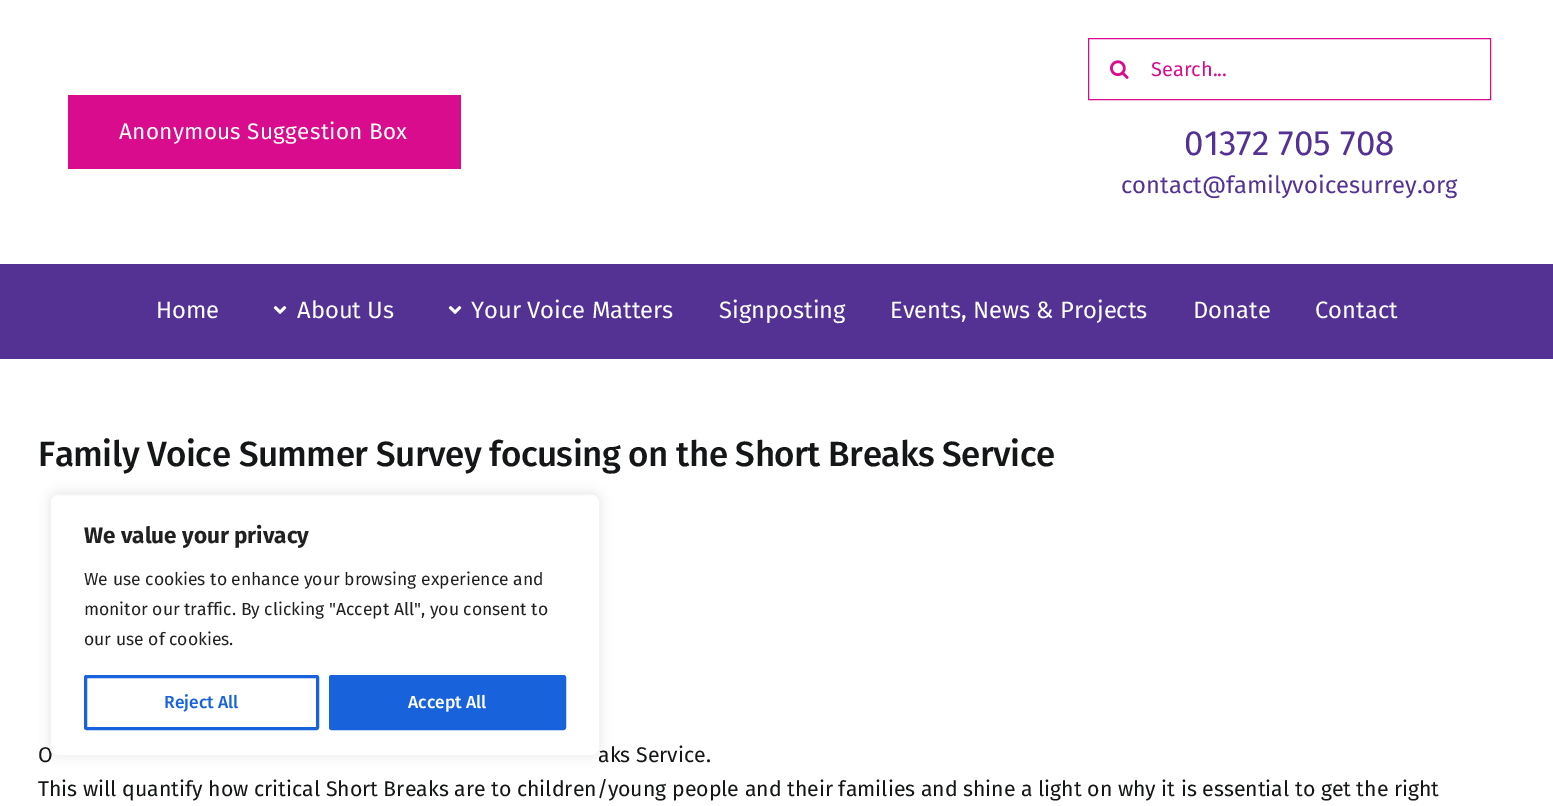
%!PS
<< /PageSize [1553 806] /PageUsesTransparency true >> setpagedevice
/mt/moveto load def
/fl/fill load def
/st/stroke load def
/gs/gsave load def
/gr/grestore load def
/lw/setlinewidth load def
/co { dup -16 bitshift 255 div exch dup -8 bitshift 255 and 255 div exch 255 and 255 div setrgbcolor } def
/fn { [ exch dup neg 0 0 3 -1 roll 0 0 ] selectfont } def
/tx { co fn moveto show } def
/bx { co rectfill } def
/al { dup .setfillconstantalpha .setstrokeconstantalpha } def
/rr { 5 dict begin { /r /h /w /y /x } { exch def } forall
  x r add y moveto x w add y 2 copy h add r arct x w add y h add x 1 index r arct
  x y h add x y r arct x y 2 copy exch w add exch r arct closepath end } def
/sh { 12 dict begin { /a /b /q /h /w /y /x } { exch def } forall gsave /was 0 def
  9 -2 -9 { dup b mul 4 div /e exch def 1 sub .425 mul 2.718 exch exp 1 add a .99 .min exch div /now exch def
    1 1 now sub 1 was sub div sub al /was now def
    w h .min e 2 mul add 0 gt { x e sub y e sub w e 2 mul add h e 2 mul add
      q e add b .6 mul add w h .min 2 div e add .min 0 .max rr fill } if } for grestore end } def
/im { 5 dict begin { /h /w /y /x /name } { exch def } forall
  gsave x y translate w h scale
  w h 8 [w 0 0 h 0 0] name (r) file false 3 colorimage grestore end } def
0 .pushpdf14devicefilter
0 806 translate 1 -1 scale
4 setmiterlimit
0 0 1553 806 16#FFFFFF bx
68 95 393 74 16#D80C8C bx
1088.5 38.5 402 61 rectstroke
(media/1.raw) 1110 60 19 19 im
0 264 1553 95 16#543294 bx
(media/2.raw) 273 306 14 8 im
(media/2.raw) 448 306 14 8 im
16#ACABAB co
50 493 550 262 8 6 .3 sh
/FiraSans-Regular 22.5 fn
16#FFFFFF co
119 139 mt .3 0 (Anonymous Suggestion Box) ashow
(Search...) 1151 76 /FiraSans-Regular 20 16#D80C8C tx
(01372 705 708) 1184 155 /FiraSans-Regular 35 16#543294 tx
(contact@familyvoicesurrey.org) 1121 193 /FiraSans-Regular 23.75 16#543294 tx
(Home) 156 318 /FiraSans-Regular 23.75 16#FFFFFF tx
(About Us) 297 318 /FiraSans-Regular 23.75 16#FFFFFF tx
(Your Voice Matters) 471 318 /FiraSans-Regular 23.75 16#FFFFFF tx
(Signposting) 719 318 /FiraSans-Regular 23.75 16#FFFFFF tx
(Events, News & Projects) 890 318 /FiraSans-Regular 23.75 16#FFFFFF tx
(Donate) 1193 318 /FiraSans-Regular 23.75 16#FFFFFF tx
(Contact) 1315 318 /FiraSans-Regular 23.75 16#FFFFFF tx
/FiraSans-Medium 35 fn
16#141617 co
38 466 mt -.53 0 (Family Voice Summer Survey focusing on the Short Breaks Service) ashow
(O) 38 762 /FiraSans-Regular 21.25 16#141617 tx
(aks Service.) 598 762 /FiraSans-Regular 21.25 16#141617 tx
(This will quantify how critical Short Breaks are to children/young people and their families and shine a light on why it is essential to get the right) 38 796 /FiraSans-Regular 21.25 16#141617 tx
16#FFFFFF co
50.5 494.5 549 261 7.5 rr gs fl gr
16#F4F4F4 co
st
(We value your privacy) 84 543 /FiraSans-Bold 22.5 16#212121 tx
(We use cookies to enhance your browsing experience and) 84 585 /FiraSans-Regular 17.5 16#212121 tx
(monitor our traffic. By clicking "Accept All", you consent to) 84 615 /FiraSans-Regular 17.5 16#212121 tx
(our use of cookies.) 84 645 /FiraSans-Regular 17.5 16#212121 tx
16#1863DC co
3 lw
85.5 676.5 232 52 1 rr st
(Reject All) 164 708 /FiraSans-Medium 17.5 16#1863DC tx
330.5 676.5 234 52 1 rr gs fl gr
st
(Accept All) 408 708 /FiraSans-Medium 17.5 16#FFFFFF tx
.poppdf14devicefilter showpage
